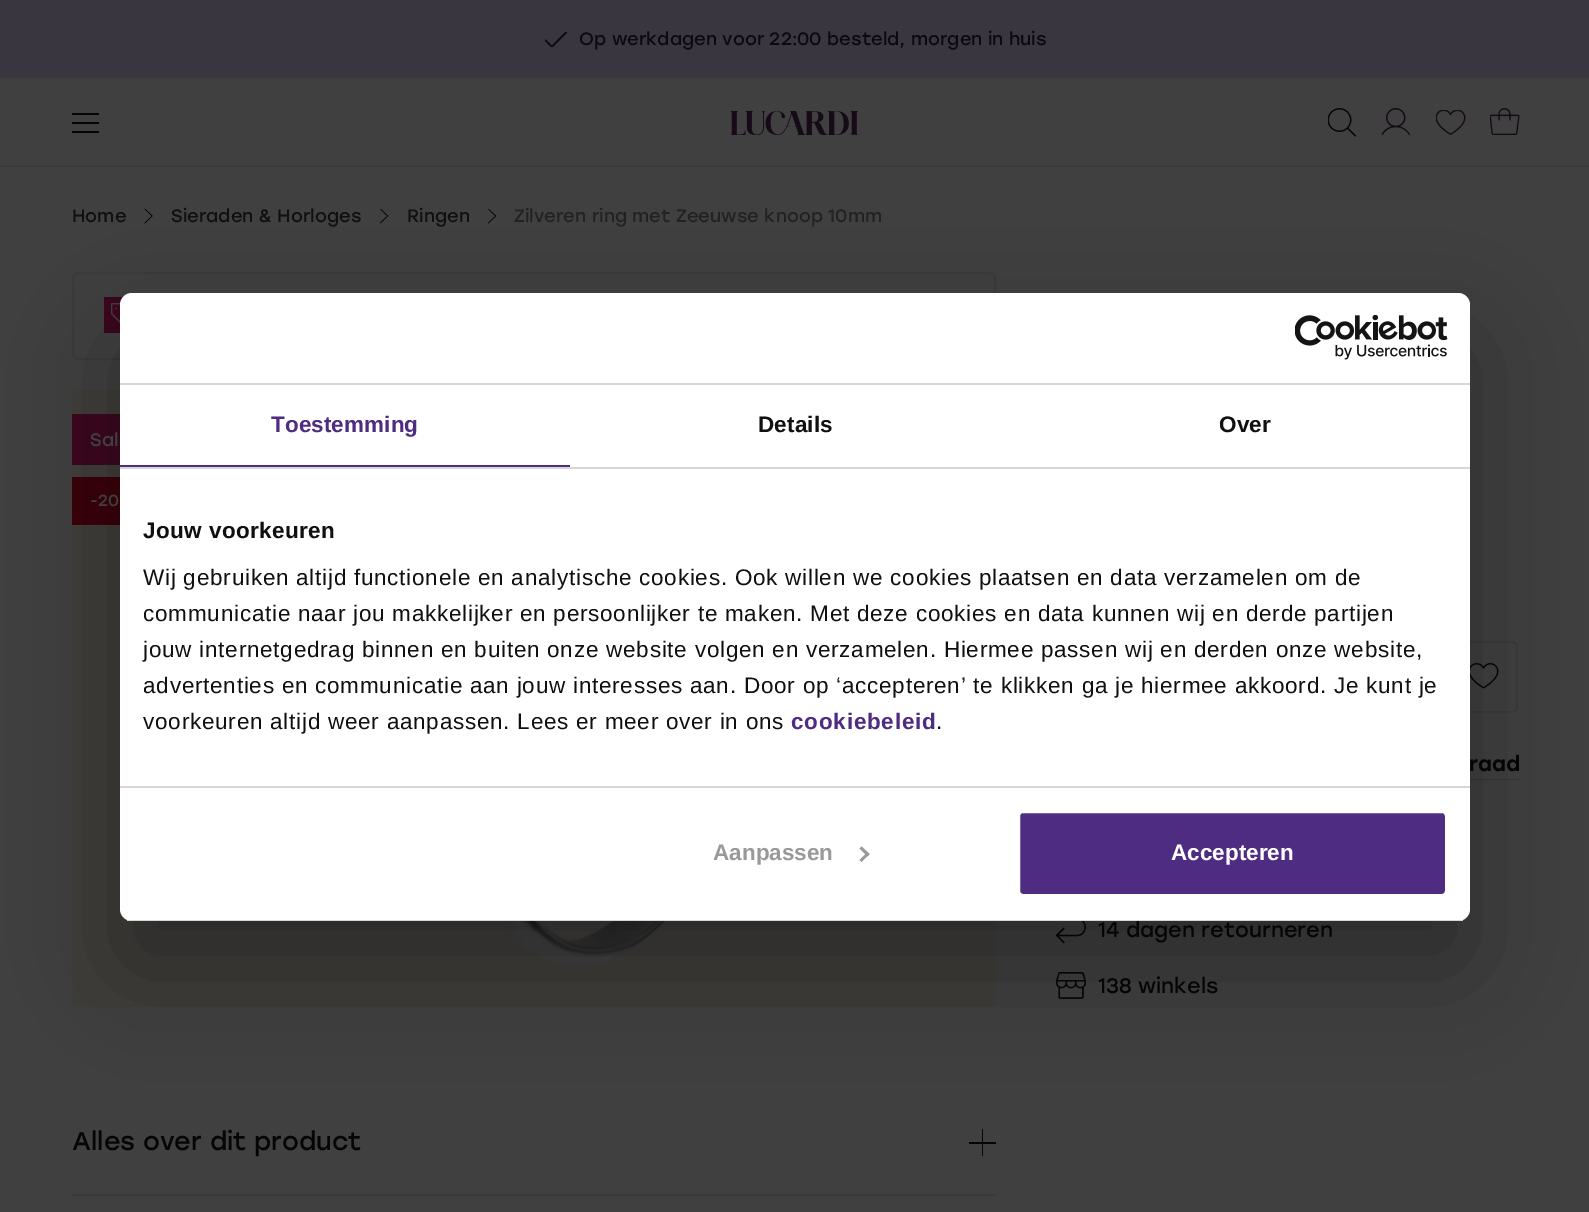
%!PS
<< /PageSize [1589 1212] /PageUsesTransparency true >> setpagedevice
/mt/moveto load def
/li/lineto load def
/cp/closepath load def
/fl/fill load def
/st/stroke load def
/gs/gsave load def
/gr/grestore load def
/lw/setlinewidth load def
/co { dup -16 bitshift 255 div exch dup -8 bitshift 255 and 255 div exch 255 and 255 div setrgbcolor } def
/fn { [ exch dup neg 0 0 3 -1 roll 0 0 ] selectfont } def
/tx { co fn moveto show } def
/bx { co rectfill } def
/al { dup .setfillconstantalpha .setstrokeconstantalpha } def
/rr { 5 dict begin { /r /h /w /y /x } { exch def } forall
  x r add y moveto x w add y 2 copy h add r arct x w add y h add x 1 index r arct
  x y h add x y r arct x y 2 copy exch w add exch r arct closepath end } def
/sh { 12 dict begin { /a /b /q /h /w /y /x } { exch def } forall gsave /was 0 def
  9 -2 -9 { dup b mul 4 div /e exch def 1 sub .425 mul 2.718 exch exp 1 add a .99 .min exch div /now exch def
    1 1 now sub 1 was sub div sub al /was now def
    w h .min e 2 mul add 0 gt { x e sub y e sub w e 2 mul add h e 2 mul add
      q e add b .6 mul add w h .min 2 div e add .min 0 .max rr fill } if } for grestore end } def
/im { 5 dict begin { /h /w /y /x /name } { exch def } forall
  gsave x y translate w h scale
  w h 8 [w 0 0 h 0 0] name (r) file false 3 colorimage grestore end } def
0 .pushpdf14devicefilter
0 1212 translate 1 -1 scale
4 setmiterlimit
0 0 1589 1212 16#404040 bx
0 0 1589 78 16#39363F bx
(media/1.raw) 545 32 22 15 im
0 165 1589 2 16#3A3A3A bx
72 113 27 2 16#050505 bx
72 122 27 2 16#050505 bx
72 131 27 2 16#050505 bx
(media/2.raw) 731 111 127 24 im
(media/3.raw) 1328 108 28 29 im
(media/4.raw) 1382 108 28 27 im
(media/5.raw) 1436 110 30 25 im
(media/6.raw) 1490 108 30 27 im
(media/7.raw) 144 209 9 15 im
(media/8.raw) 380 209 9 15 im
(media/8.raw) 488 209 9 15 im
16#3A3A3A co
2 lw
73 273 922 86 5 rr st
104 297 20 36 16#3B061F bx
(media/9.raw) 111 303 10 20 im
16#3E3D3A co
72 390 924 617 6 rr fl
(media/10.raw) 497 921 168 45 im
72 414 48 51 16#3B061F bx
72 477 48 48 16#39010A bx
16#3A3A3A co
1450 642 67 70 5 rr st
(media/11.raw) 1470 663 29 26 im
1470 779 51 1 16#343434 bx
(media/12.raw) 1056 921 30 23 im
(media/13.raw) 1056 972 30 27 im
72 1194 924 2 16#3A3A3A bx
982 1129 1 27 16#050505 bx
969 1142 27 2 16#050505 bx
16#000000 co
120 341 1350 628 12 51 .3 sh
(Op werkdagen voor 22:00 besteld, morgen in huis) 579 45 /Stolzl-Regular 18 16#0E0812 tx
(Home) 72 222 /Stolzl-Regular 18 16#101010 tx
(Sieraden & Horloges) 171 222 /Stolzl-Regular 18 16#101010 tx
(Ringen) 407 222 /Stolzl-Regular 18 16#101010 tx
(Zilveren ring met Zeeuwse knoop 10mm) 514 222 /Stolzl-Regular 18 16#222222 tx
(Sal) 90 446 /Stolzl-Regular 18 16#404040 tx
(-20) 90 506 /Stolzl-Regular 16 16#404040 tx
(raad) 1469 771 /Stolzl-Medium 21 16#050505 tx
(14 dagen retourneren) 1098 937 /Stolzl-Regular 21 16#050505 tx
(138 winkels) 1098 993 /Stolzl-Regular 21 16#050505 tx
(Alles over dit product) 72 1150 /Stolzl-Regular 25.5 16#050505 tx
16#FFFFFF co
120 293 1350 628 12 rr fl
120 383 1350 2 16#D6D6D6 bx
(media/14.raw) 1295 315 153 45 im
120 467 1350 2 16#D6D6D6 bx
120 465 450 2 16#4E2C81 bx
/LiberationSans-Bold 22.5 fn
271 432 mt .1 0 (Toestemming) ashow
16#101010 co
758 432 mt .1 0 (Details) ashow
1219 432 mt .1 0 (Over) ashow
120 786 1350 2 16#D6D6D6 bx
16#101010 co
143 538 mt .4 0 (Jouw voorkeuren) ashow
/LiberationSans-Regular 22.5 fn
143 585 mt .75 0 (Wij gebruiken altijd functionele en analytische cookies. Ook willen we cookies plaatsen en data verzamelen om de) ashow
143 621 mt .75 0 (communicatie naar jou makkelijker en persoonlijker te maken. Met deze cookies en data kunnen wij en derde partijen) ashow
143 657 mt .75 0 (jouw internetgedrag binnen en buiten onze website volgen en verzamelen. Hiermee passen wij en derden onze website,) ashow
143 693 mt .75 0 (advertenties en communicatie aan jouw interesses aan. Door op ‘accepteren’ te klikken ga je hiermee akkoord. Je kunt je) ashow
143 729 mt .75 0 (voorkeuren altijd weer aanpassen. Lees er meer over in ons) ashow
/LiberationSans-Bold 22.5 fn
16#4E2C81 co
791 729 mt .75 0 (cookiebeleid) ashow
/LiberationSans-Regular 22.5 fn
16#101010 co
936 729 mt .75 0 (.) ashow
gs
120 293 1350 628 12 rr clip newpath
120 920 1350 1 16#D6D6D6 bx
gr
(Aanpassen) 713 860 /LiberationSans-Bold 22.5 16#999999 tx
861.5 846.5 mt 869.5 854 li 867.5 856.5 li 859.5 848.5 li cp fl
867.5 852 mt 869.5 854 li 861.5 862 li 859.5 860 li cp fl
16#4E2C81 co
1018.5 811.5 428 84 4.5 rr gs fl gr
16#FFFFFF co
3 lw
st
(Accepteren) 1171 860 /LiberationSans-Bold 22.5 16#FFFFFF tx
.poppdf14devicefilter showpage
